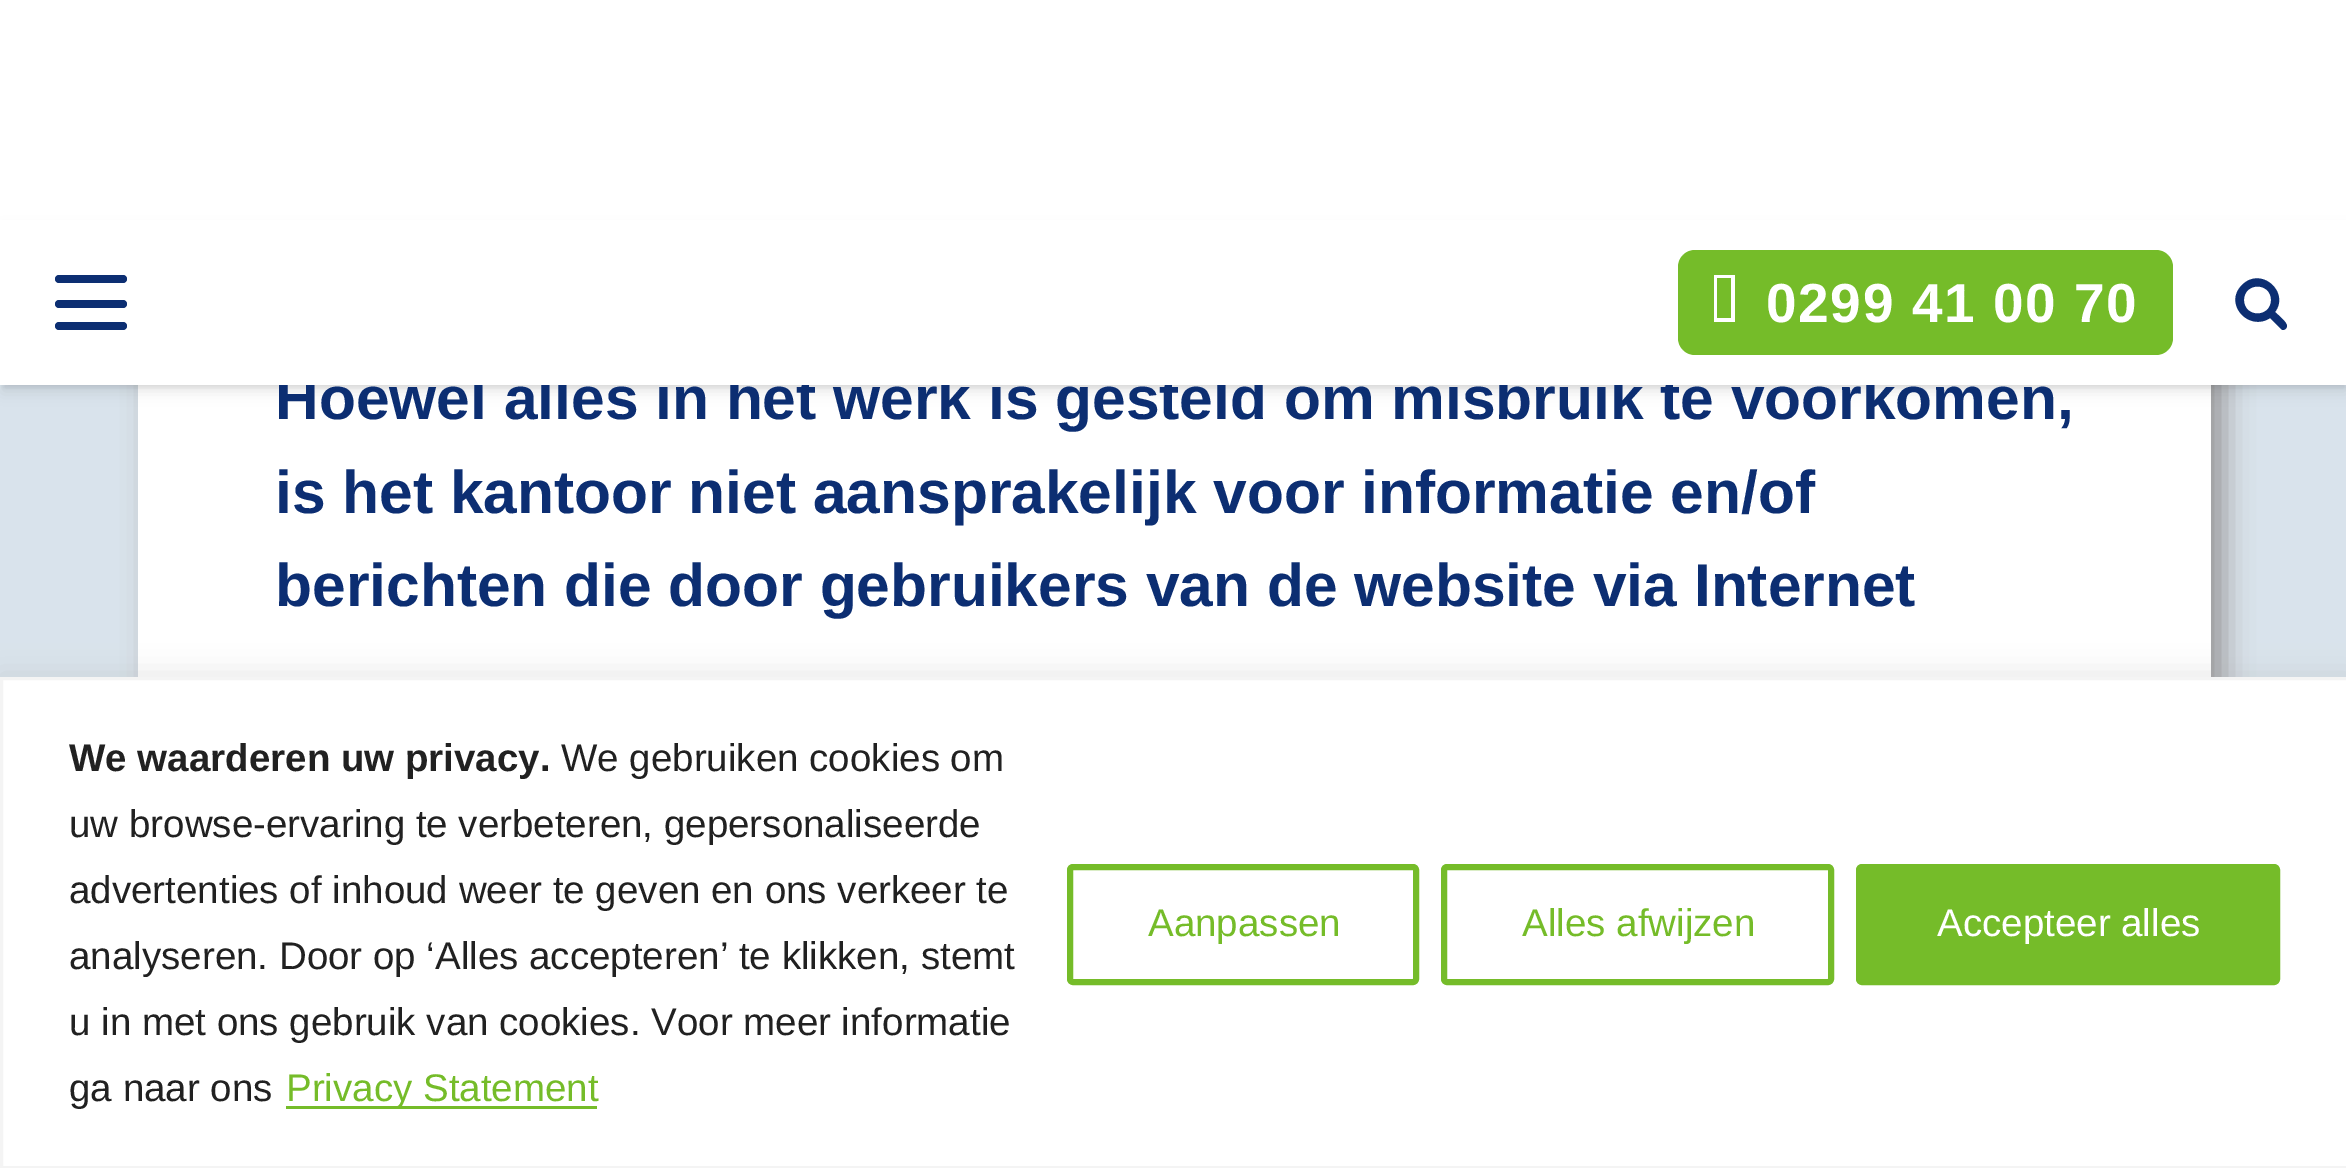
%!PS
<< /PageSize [2346 1168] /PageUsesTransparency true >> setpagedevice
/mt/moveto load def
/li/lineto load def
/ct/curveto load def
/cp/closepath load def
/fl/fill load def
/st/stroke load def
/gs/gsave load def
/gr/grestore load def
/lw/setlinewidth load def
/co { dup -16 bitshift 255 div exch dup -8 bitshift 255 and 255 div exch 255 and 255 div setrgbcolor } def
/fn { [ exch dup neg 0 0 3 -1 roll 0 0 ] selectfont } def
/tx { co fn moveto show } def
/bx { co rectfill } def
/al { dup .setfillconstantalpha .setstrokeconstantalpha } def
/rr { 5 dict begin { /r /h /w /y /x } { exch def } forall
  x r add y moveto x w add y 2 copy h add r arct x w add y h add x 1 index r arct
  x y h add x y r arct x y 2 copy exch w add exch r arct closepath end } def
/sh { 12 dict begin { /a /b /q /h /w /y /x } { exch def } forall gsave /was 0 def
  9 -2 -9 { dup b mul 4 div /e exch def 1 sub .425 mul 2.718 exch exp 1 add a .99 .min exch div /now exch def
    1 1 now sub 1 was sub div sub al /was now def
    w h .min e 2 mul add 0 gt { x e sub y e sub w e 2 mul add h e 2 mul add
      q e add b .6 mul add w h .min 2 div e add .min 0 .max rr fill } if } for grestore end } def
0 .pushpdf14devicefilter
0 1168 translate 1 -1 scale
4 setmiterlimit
0 0 2346 1168 16#D9E3EC bx
16#999999 co
151 -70 2074 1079 28 14 1 sh
0 0 2346 220 16#FFFFFF bx
138 385 2073 292 16#FFFFFF bx
16#000000 co
3 228 2343 160 0 1.5 .05 sh
3 231 2343 160 0 7 .1 sh
16#ACABAB co
0 674 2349 492 0 14 .3 sh
16#FFFFFF co
1.5 678.5 mt 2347.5 678.5 li 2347.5 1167.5 li 1.5 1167.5 li cp gs fl gr
16#F4F4F4 co
3 lw
st
286 1106 311 3 16#75BC29 bx
6 lw
1070 867 346 115 3 rr st
1444 867 387 115 3 rr st
1859 867 418 115 3 rr gs fl gr
st
(Hoewel alles in het werk is gesteld om misbruik te voorkomen,) 275 419 /LiberationSans-Bold 60.5 16#0C2E72 tx
0 220 2346 165 16#FFFFFF bx
16#75BC29 co
1678 250 495 105 17 rr fl
/LiberationSans-Bold 55 fn
16#FFFFFF co
1766 322 mt 1.6 0 (0299 41 00 70) ashow
1717 318 mt 1717 278 li 1731 278 li 1731 318 li cp 1714 322 mt 1735 322 li 1735 275 li 1714 275 li cp fl
16#0C2E72 co
55 322 72 8 4 rr fl
55 275 72 8 4 rr fl
55 300 72 8 4 rr fl
2271 300 mt 2271 318 2244 318 2244 300 ct 2244 282 2271 282 2271 300 ct cp 2287 326 mt 2287 322 2278 315 2275 312 ct 2290 292 2261 266 2242 285 ct 2223 304 2249 332 2270 318 ct 2280 328 li 2281 329 2282 330 2283 330 ct 2285 330 2287 328 2287 326 ct cp fl
(is het kantoor niet aansprakelijk voor informatie en/of) 275 513 /LiberationSans-Bold 60.5 16#0C2E72 tx
(berichten die door gebruikers van de website via Internet) 275 606 /LiberationSans-Bold 60.5 16#0C2E72 tx
(We waarderen uw privacy.) 69 771 /LiberationSans-Bold 38.5 16#212121 tx
(We gebruiken cookies om) 561 771 /LiberationSans-Regular 38.5 16#212121 tx
(uw browse-ervaring te verbeteren, gepersonaliseerde) 69 837 /LiberationSans-Regular 38.5 16#212121 tx
(advertenties of inhoud weer te geven en ons verkeer te) 69 903 /LiberationSans-Regular 38.5 16#212121 tx
(analyseren. Door op ‘Alles accepteren’ te klikken, stemt) 69 969 /LiberationSans-Regular 38.5 16#212121 tx
(u in met ons gebruik van cookies. Voor meer informatie) 69 1035 /LiberationSans-Regular 38.5 16#212121 tx
(ga naar ons) 69 1101 /LiberationSans-Regular 38.5 16#212121 tx
(Privacy Statement) 286 1101 /LiberationSans-Regular 38.5 16#75BC29 tx
(Aanpassen) 1148 936 /LiberationSans-Regular 38.5 16#75BC29 tx
(Alles afwijzen) 1522 936 /LiberationSans-Regular 38.5 16#75BC29 tx
(Accepteer alles) 1937 936 /LiberationSans-Regular 38.5 16#FFFFFF tx
.poppdf14devicefilter showpage
